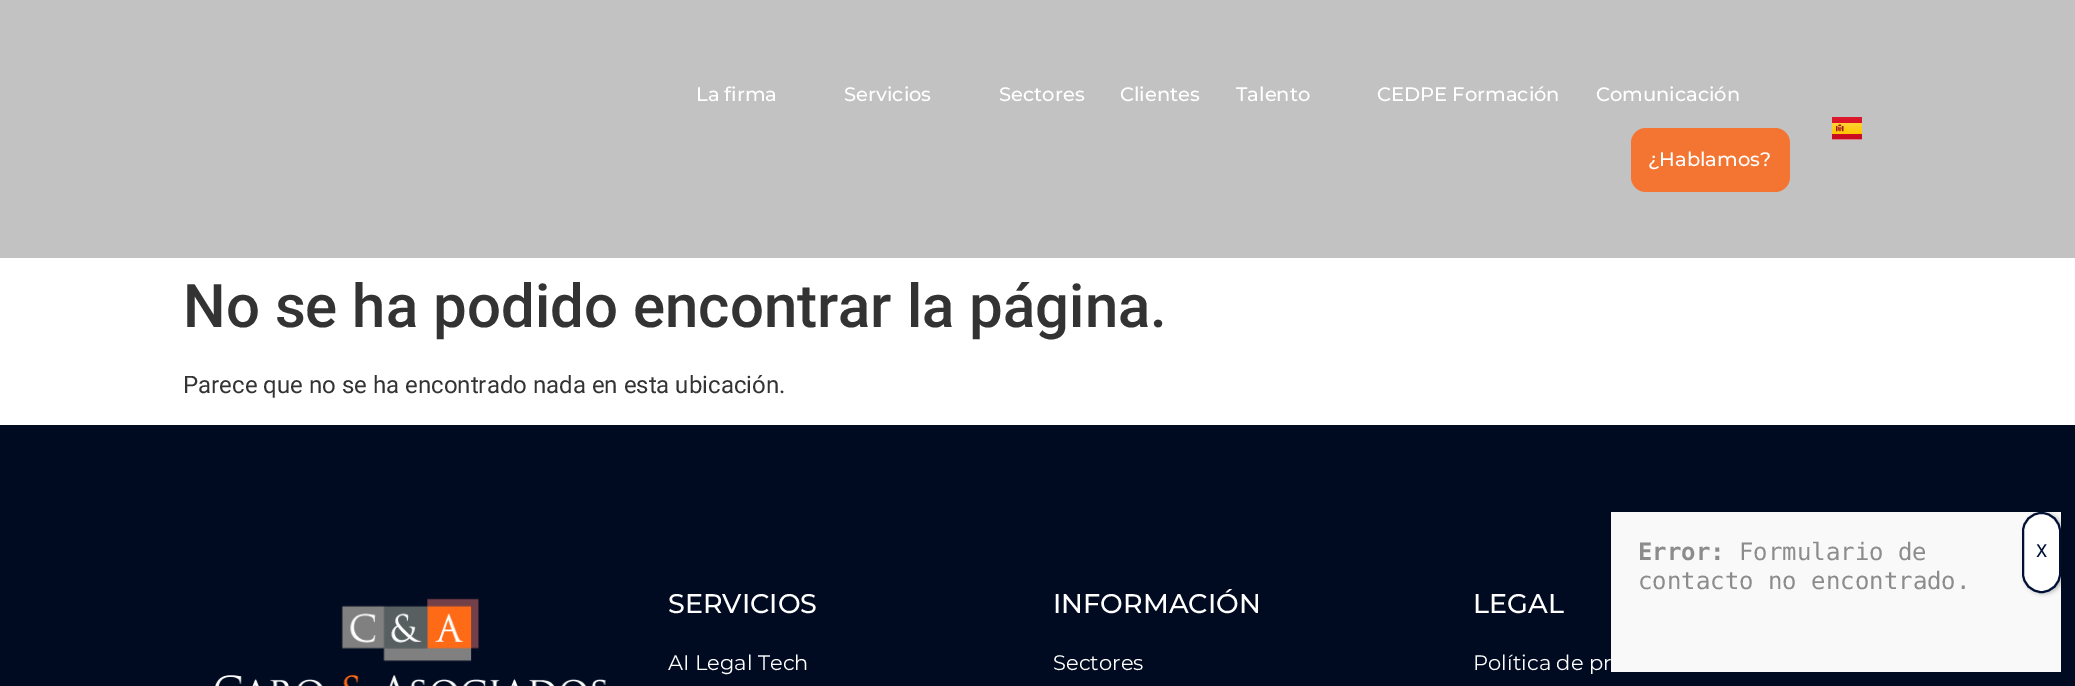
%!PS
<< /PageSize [2075 686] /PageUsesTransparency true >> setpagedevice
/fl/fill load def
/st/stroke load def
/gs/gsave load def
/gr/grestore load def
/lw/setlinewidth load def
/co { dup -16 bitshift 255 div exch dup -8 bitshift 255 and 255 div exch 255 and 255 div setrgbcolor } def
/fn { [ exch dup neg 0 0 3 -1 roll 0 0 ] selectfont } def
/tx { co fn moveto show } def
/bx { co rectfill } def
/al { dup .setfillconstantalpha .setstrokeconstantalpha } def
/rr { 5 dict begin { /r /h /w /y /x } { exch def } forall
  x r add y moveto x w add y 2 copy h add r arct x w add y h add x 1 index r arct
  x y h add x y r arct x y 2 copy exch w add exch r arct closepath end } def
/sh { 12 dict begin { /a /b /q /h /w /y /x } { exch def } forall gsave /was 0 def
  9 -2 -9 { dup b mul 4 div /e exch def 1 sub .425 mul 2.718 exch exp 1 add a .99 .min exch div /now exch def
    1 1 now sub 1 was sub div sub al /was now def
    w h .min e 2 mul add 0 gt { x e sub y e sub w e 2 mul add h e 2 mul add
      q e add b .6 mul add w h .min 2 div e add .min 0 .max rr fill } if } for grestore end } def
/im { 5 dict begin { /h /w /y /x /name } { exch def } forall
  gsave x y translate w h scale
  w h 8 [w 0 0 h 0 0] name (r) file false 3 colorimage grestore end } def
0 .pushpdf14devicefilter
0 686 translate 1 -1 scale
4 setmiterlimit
0 0 2075 686 16#FFFFFF bx
0 0 2075 258 16#C2C2C2 bx
16#F47432 co
1631 128 159 64 15 rr fl
(media/1.raw) 1832 117 30 23 im
0 425 2075 261 16#000A20 bx
(media/2.raw) 215 598 391 88 im
1611 512 450 160 16#F9F9F9 bx
16#020202 co
2024 513 39 81 19.5 2 .23 sh
16#FFFFFF co
2023 513 37 79 18.5 rr gs fl gr
16#001035 co
2 lw
st
(La firma) 696 101 /Montserrat-Medium 19.5 16#FFFFFF tx
(Servicios) 844 101 /Montserrat-Medium 19.5 16#FFFFFF tx
(Sectores) 999 101 /Montserrat-Medium 19.5 16#FFFFFF tx
(Clientes) 1120 101 /Montserrat-Medium 19.5 16#FFFFFF tx
(Talento) 1236 101 /Montserrat-Medium 19.5 16#FFFFFF tx
(CEDPE Formación) 1377 101 /Montserrat-Medium 19.5 16#FFFFFF tx
(Comunicación) 1596 101 /Montserrat-Medium 19.5 16#FFFFFF tx
(¿Hablamos?) 1648 166 /Montserrat-Medium 19.5 16#FFFFFF tx
(No se ha podido encontrar la página.) 183 327 /Roboto-Medium 60 16#333333 tx
(Parece que no se ha encontrado nada en esta ubicación.) 183 393 /Roboto-Regular 24 16#333333 tx
(SERVICIOS) 668 613 /Montserrat-Medium 27 16#FFFFFF tx
(AI Legal Tech) 668 670 /Montserrat-Regular 21 16#FFFFFF tx
(INFORMACIÓN) 1053 613 /Montserrat-Medium 27 16#FFFFFF tx
(Sectores) 1053 670 /Montserrat-Regular 21 16#FFFFFF tx
(LEGAL) 1473 613 /Montserrat-Medium 27 16#FFFFFF tx
(Política de pr) 1473 670 /Montserrat-Regular 21 16#FFFFFF tx
(Error:) 1638 560 /DejaVuSansMono-Bold 24 16#8C8C8C tx
(Formulario de) 1739 560 /DejaVuSansMono-Regular 24 16#8C8C8C tx
(contacto no encontrado.) 1638 589 /DejaVuSansMono-Regular 24 16#8C8C8C tx
(X) 2036 557 /Roboto-Regular 18 16#001035 tx
.poppdf14devicefilter showpage
